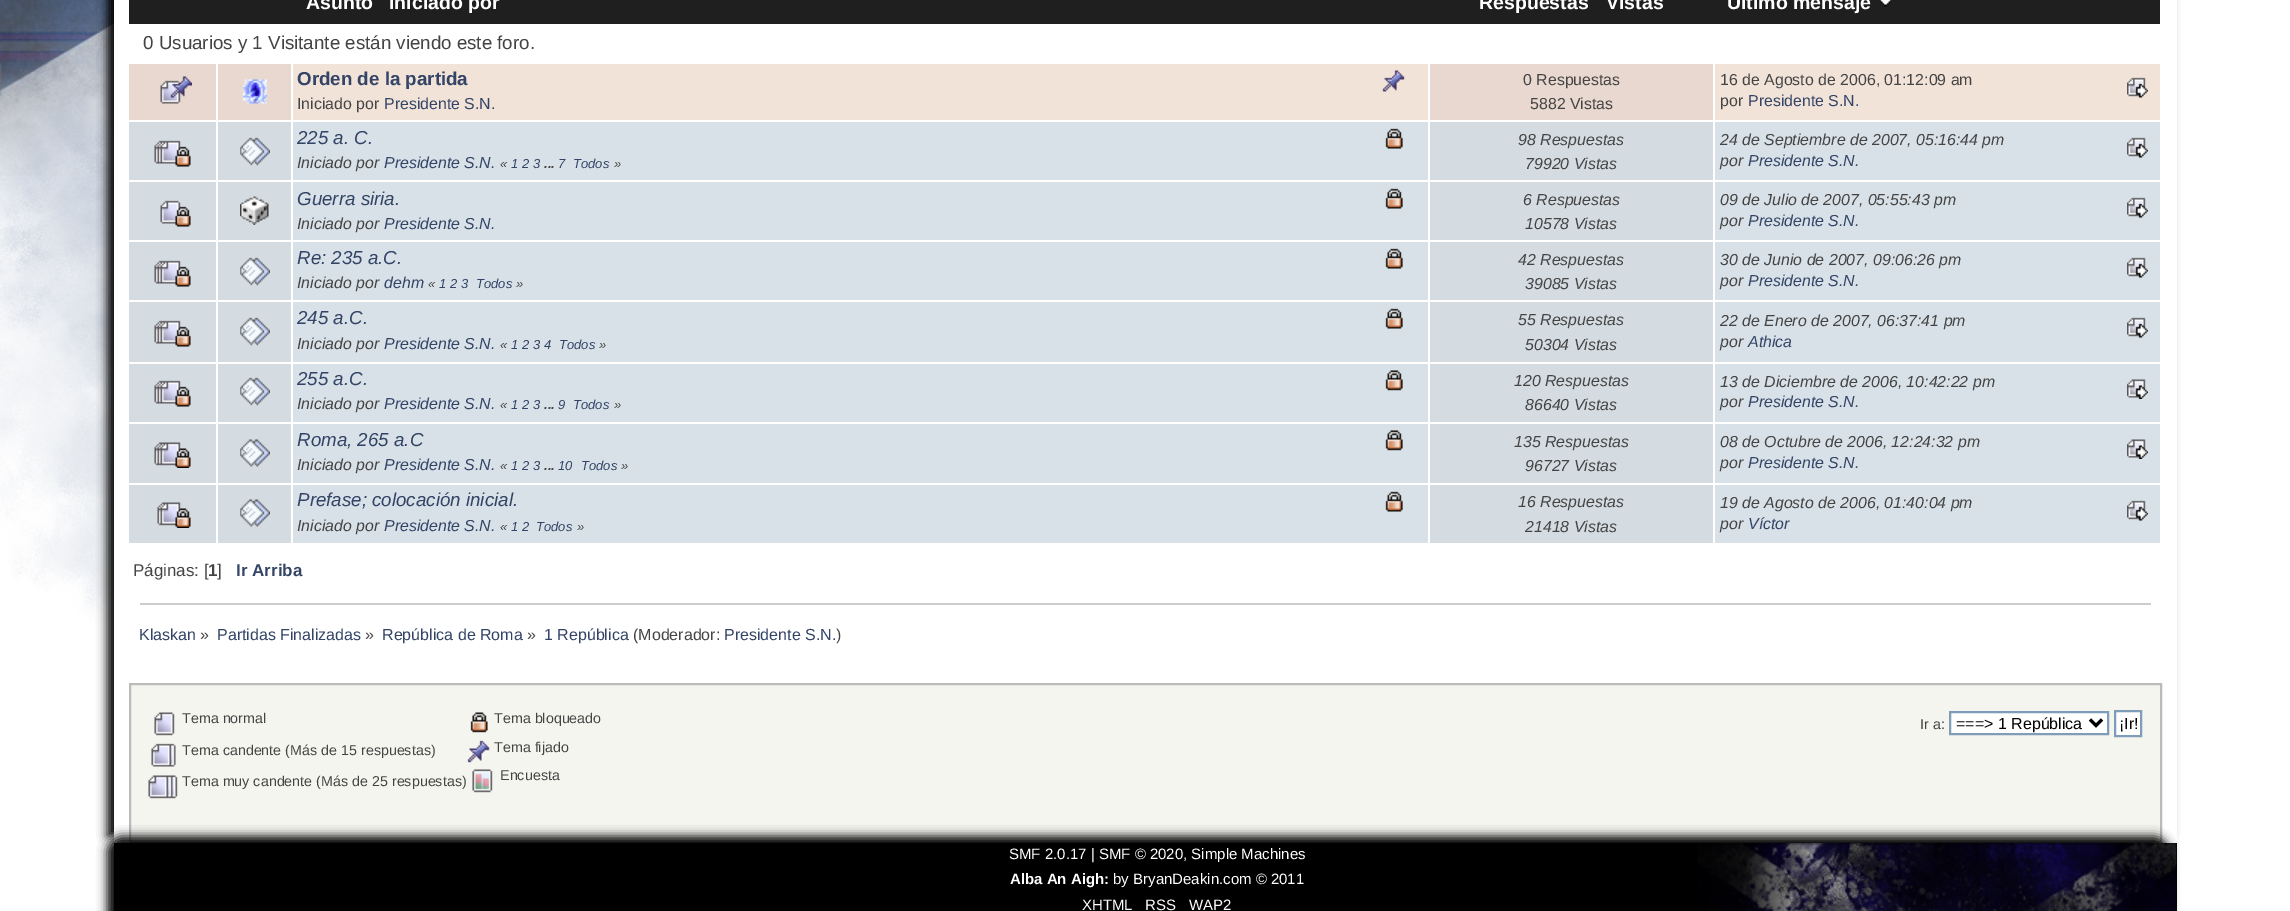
%!PS
<< /PageSize [2290 911] /PageUsesTransparency true >> setpagedevice
/mt/moveto load def
/li/lineto load def
/cp/closepath load def
/fl/fill load def
/st/stroke load def
/gs/gsave load def
/gr/grestore load def
/lw/setlinewidth load def
/co { dup -16 bitshift 255 div exch dup -8 bitshift 255 and 255 div exch 255 and 255 div setrgbcolor } def
/fn { [ exch dup neg 0 0 3 -1 roll 0 0 ] selectfont } def
/tx { co fn moveto show } def
/bx { co rectfill } def
/al { dup .setfillconstantalpha .setstrokeconstantalpha } def
/rr { 5 dict begin { /r /h /w /y /x } { exch def } forall
  x r add y moveto x w add y 2 copy h add r arct x w add y h add x 1 index r arct
  x y h add x y r arct x y 2 copy exch w add exch r arct closepath end } def
/sh { 12 dict begin { /a /b /q /h /w /y /x } { exch def } forall gsave /was 0 def
  9 -2 -9 { dup b mul 4 div /e exch def 1 sub .425 mul 2.718 exch exp 1 add a .99 .min exch div /now exch def
    1 1 now sub 1 was sub div sub al /was now def
    w h .min e 2 mul add 0 gt { x e sub y e sub w e 2 mul add h e 2 mul add
      q e add b .6 mul add w h .min 2 div e add .min 0 .max rr fill } if } for grestore end } def
/im { 5 dict begin { /h /w /y /x /name } { exch def } forall
  gsave x y translate w h scale
  w h 8 [w 0 0 h 0 0] name (r) file false 3 colorimage grestore end } def
0 .pushpdf14devicefilter
0 911 translate 1 -1 scale
4 setmiterlimit
0 0 2290 911 16#FFFFFF bx
(media/1.raw) 0 0 114 624 im
16#000000 co
107 -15 2062 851 0 5 1 sh
114 0 2063 843 16#FFFFFF bx
129 0 2031 24 16#1F1F1F bx
(media/2.raw) 1878 0 15 7 im
129 64 87 56 16#E8D8CF bx
(media/3.raw) 160 76 32 28 im
218 64 73 56 16#E8D8CF bx
(media/4.raw) 243 79 24 25 im
293 64 1135 56 16#F2E3D9 bx
(media/5.raw) 1382 70 23 22 im
1430 64 283 56 16#E8D8CF bx
1715 64 445 56 16#F2E3D9 bx
(media/6.raw) 2127 77 21 21 im
129 122 87 58 16#D4DCE2 bx
(media/7.raw) 154 140 37 27 im
218 122 73 58 16#D4DCE2 bx
(media/8.raw) 240 137 30 29 im
293 122 1135 58 16#D8E1E7 bx
(media/9.raw) 1385 128 18 21 im
1430 122 283 58 16#D4DCE2 bx
1715 122 445 58 16#D8E1E7 bx
(media/10.raw) 2127 137 21 21 im
129 182 87 58 16#D4DCE2 bx
(media/11.raw) 160 200 31 27 im
218 182 73 58 16#D4DCE2 bx
(media/12.raw) 240 196 29 29 im
293 182 1135 58 16#D8E1E7 bx
(media/9.raw) 1385 188 18 21 im
1430 182 283 58 16#D4DCE2 bx
1715 182 445 58 16#D8E1E7 bx
(media/10.raw) 2127 197 21 21 im
129 242 87 58 16#D4DCE2 bx
(media/7.raw) 154 260 37 27 im
218 242 73 58 16#D4DCE2 bx
(media/8.raw) 240 257 30 29 im
293 242 1135 58 16#D8E1E7 bx
(media/9.raw) 1385 248 18 21 im
1430 242 283 58 16#D4DCE2 bx
1715 242 445 58 16#D8E1E7 bx
(media/10.raw) 2127 257 21 21 im
129 302 87 60 16#D4DCE2 bx
(media/7.raw) 154 320 37 27 im
218 302 73 60 16#D4DCE2 bx
(media/8.raw) 240 317 30 29 im
293 302 1135 60 16#D8E1E7 bx
(media/9.raw) 1385 308 18 21 im
1430 302 283 60 16#D4DCE2 bx
1715 302 445 60 16#D8E1E7 bx
(media/10.raw) 2127 317 21 21 im
129 364 87 58 16#D4DCE2 bx
(media/7.raw) 154 380 37 27 im
218 364 73 58 16#D4DCE2 bx
(media/8.raw) 240 377 30 29 im
293 364 1135 58 16#D8E1E7 bx
(media/13.raw) 1385 370 18 21 im
1430 364 283 58 16#D4DCE2 bx
1715 364 445 58 16#D8E1E7 bx
(media/14.raw) 2127 379 21 20 im
129 424 87 59 16#D4DCE2 bx
(media/15.raw) 154 442 37 26 im
218 424 73 59 16#D4DCE2 bx
(media/16.raw) 240 439 30 28 im
293 424 1135 59 16#D8E1E7 bx
(media/13.raw) 1385 430 18 21 im
1430 424 283 59 16#D4DCE2 bx
1715 424 445 59 16#D8E1E7 bx
(media/14.raw) 2127 439 21 20 im
129 485 87 58 16#D4DCE2 bx
(media/17.raw) 157 502 34 26 im
218 485 73 58 16#D4DCE2 bx
(media/16.raw) 240 499 30 28 im
293 485 1135 58 16#D8E1E7 bx
(media/9.raw) 1385 491 18 21 im
1430 485 283 58 16#D4DCE2 bx
1715 485 445 58 16#D8E1E7 bx
(media/10.raw) 2127 500 21 21 im
140 603 2011 2 16#CCCCCC bx
16#F5F5F0 co
130 684 mt 2161 684 li 2161 842 li 130 842 li cp gs fl gr
16#BBBBBB co
2 lw
st
(media/18.raw) 154 712 21 24 im
(media/19.raw) 151 743 25 24 im
(media/20.raw) 148 775 30 24 im
(media/21.raw) 470 712 18 21 im
(media/22.raw) 467 740 23 23 im
(media/23.raw) 472 769 21 24 im
16#FFFFFF co
1950 712 mt 2108 712 li 2108 734 li 1950 734 li cp gs fl gr
16#7F9DB9 co
st
16#000000 co
3 lw
2090 719.5 mt 2096 725.5 li 2102 719.5 li st
16#FFFFFF co
2115 711 mt 2141 711 li 2141 736 li 2115 736 li cp gs fl gr
16#7F9DB9 co
2 lw
st
16#000000 co
107 836 2062 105 15 5 1 sh
114 843 2063 68 16#000000 bx
(media/24.raw) 1697 843 480 68 im
(Asunto) 306 9 /LiberationSans-Bold 19.5 16#FFFFFF tx
(Iniciado por) 389 9 /LiberationSans-Bold 19.5 16#FFFFFF tx
(Respuestas) 1479 9 /LiberationSans-Bold 19.5 16#FFFFFF tx
(Vistas) 1606 9 /LiberationSans-Bold 19.5 16#FFFFFF tx
(Último mensaje) 1727 9 /LiberationSans-Bold 19.5 16#FFFFFF tx
(0 Usuarios y 1 Visitante están viendo este foro.) 143 49 /LiberationSans-Regular 18.75 16#444444 tx
(Orden de la partida) 297 85 /LiberationSans-Bold 18.75 16#334466 tx
(Iniciado por) 297 109 /LiberationSans-Regular 15.9 16#444444 tx
(Presidente S.N.) 384 109 /LiberationSans-Regular 15.9 16#334466 tx
(0 Respuestas) 1523 85 /LiberationSans-Regular 15.9 16#444444 tx
(5882 Vistas) 1530 109 /LiberationSans-Regular 15.9 16#444444 tx
(16 de Agosto de 2006, 01:12:09 am) 1720 85 /LiberationSans-Regular 15.9 16#444444 tx
(por) 1720 106 /LiberationSans-Regular 15.9 16#444444 tx
(Presidente S.N.) 1748 106 /LiberationSans-Regular 15.9 16#334466 tx
(225 a. C.) 297 144 /LiberationSans-Italic 18.75 16#334466 tx
(Iniciado por) 297 168 /LiberationSans-Italic 15.9 16#444444 tx
(Presidente S.N.) 384 168 /LiberationSans-Italic 15.9 16#334466 tx
(«) 500 168 /LiberationSans-Italic 13 16#444444 tx
(1 2 3) 511 168 /LiberationSans-Italic 13 16#334466 tx
(...) 544 168 /LiberationSans-BoldItalic 13 16#444444 tx
(7) 558 168 /LiberationSans-Italic 13 16#334466 tx
(Todos) 573 168 /LiberationSans-Italic 13 16#334466 tx
(») 614 168 /LiberationSans-Italic 13 16#444444 tx
(98 Respuestas) 1518 145 /LiberationSans-Italic 15.9 16#444444 tx
(79920 Vistas) 1525 169 /LiberationSans-Italic 15.9 16#444444 tx
(24 de Septiembre de 2007, 05:16:44 pm) 1720 145 /LiberationSans-Italic 15.9 16#444444 tx
(por) 1720 166 /LiberationSans-Italic 15.9 16#444444 tx
(Presidente S.N.) 1748 166 /LiberationSans-Italic 15.9 16#334466 tx
(Guerra siria.) 297 205 /LiberationSans-Italic 18.75 16#334466 tx
(Iniciado por) 297 229 /LiberationSans-Italic 15.9 16#444444 tx
(Presidente S.N.) 384 229 /LiberationSans-Italic 15.9 16#334466 tx
(6 Respuestas) 1523 205 /LiberationSans-Italic 15.9 16#444444 tx
(10578 Vistas) 1525 229 /LiberationSans-Italic 15.9 16#444444 tx
(09 de Julio de 2007, 05:55:43 pm) 1720 205 /LiberationSans-Italic 15.9 16#444444 tx
(por) 1720 226 /LiberationSans-Italic 15.9 16#444444 tx
(Presidente S.N.) 1748 226 /LiberationSans-Italic 15.9 16#334466 tx
(Re: 235 a.C.) 297 264 /LiberationSans-Italic 18.75 16#334466 tx
(Iniciado por) 297 288 /LiberationSans-Italic 15.9 16#444444 tx
(dehm) 384 288 /LiberationSans-Italic 15.9 16#334466 tx
(«) 428 288 /LiberationSans-Italic 13 16#444444 tx
(1 2 3) 439 288 /LiberationSans-Italic 13 16#334466 tx
(Todos) 476 288 /LiberationSans-Italic 13 16#334466 tx
(») 516 288 /LiberationSans-Italic 13 16#444444 tx
(42 Respuestas) 1518 265 /LiberationSans-Italic 15.9 16#444444 tx
(39085 Vistas) 1525 289 /LiberationSans-Italic 15.9 16#444444 tx
(30 de Junio de 2007, 09:06:26 pm) 1720 265 /LiberationSans-Italic 15.9 16#444444 tx
(por) 1720 286 /LiberationSans-Italic 15.9 16#444444 tx
(Presidente S.N.) 1748 286 /LiberationSans-Italic 15.9 16#334466 tx
(245 a.C.) 297 324 /LiberationSans-Italic 18.75 16#334466 tx
(Iniciado por) 297 349 /LiberationSans-Italic 15.9 16#444444 tx
(Presidente S.N.) 384 349 /LiberationSans-Italic 15.9 16#334466 tx
(«) 500 349 /LiberationSans-Italic 13 16#444444 tx
(1 2 3 4) 511 349 /LiberationSans-Italic 13 16#334466 tx
(Todos) 559 349 /LiberationSans-Italic 13 16#334466 tx
(») 599 349 /LiberationSans-Italic 13 16#444444 tx
(55 Respuestas) 1518 325 /LiberationSans-Italic 15.9 16#444444 tx
(50304 Vistas) 1525 350 /LiberationSans-Italic 15.9 16#444444 tx
(22 de Enero de 2007, 06:37:41 pm) 1720 326 /LiberationSans-Italic 15.9 16#444444 tx
(por) 1720 347 /LiberationSans-Italic 15.9 16#444444 tx
(Athica) 1748 347 /LiberationSans-Italic 15.9 16#334466 tx
(255 a.C.) 297 385 /LiberationSans-Italic 18.75 16#334466 tx
(Iniciado por) 297 409 /LiberationSans-Italic 15.9 16#444444 tx
(Presidente S.N.) 384 409 /LiberationSans-Italic 15.9 16#334466 tx
(«) 500 409 /LiberationSans-Italic 13 16#444444 tx
(1 2 3) 511 409 /LiberationSans-Italic 13 16#334466 tx
(...) 544 409 /LiberationSans-BoldItalic 13 16#444444 tx
(9) 558 409 /LiberationSans-Italic 13 16#334466 tx
(Todos) 573 409 /LiberationSans-Italic 13 16#334466 tx
(») 614 409 /LiberationSans-Italic 13 16#444444 tx
(120 Respuestas) 1514 386 /LiberationSans-Italic 15.9 16#444444 tx
(86640 Vistas) 1525 410 /LiberationSans-Italic 15.9 16#444444 tx
(13 de Diciembre de 2006, 10:42:22 pm) 1720 387 /LiberationSans-Italic 15.9 16#444444 tx
(por) 1720 407 /LiberationSans-Italic 15.9 16#444444 tx
(Presidente S.N.) 1748 407 /LiberationSans-Italic 15.9 16#334466 tx
(Roma, 265 a.C) 297 446 /LiberationSans-Italic 18.75 16#334466 tx
(Iniciado por) 297 470 /LiberationSans-Italic 15.9 16#444444 tx
(Presidente S.N.) 384 470 /LiberationSans-Italic 15.9 16#334466 tx
(«) 500 470 /LiberationSans-Italic 13 16#444444 tx
(1 2 3) 511 470 /LiberationSans-Italic 13 16#334466 tx
(...) 544 470 /LiberationSans-BoldItalic 13 16#444444 tx
(10) 558 470 /LiberationSans-Italic 13 16#334466 tx
(Todos) 581 470 /LiberationSans-Italic 13 16#334466 tx
(») 621 470 /LiberationSans-Italic 13 16#444444 tx
(135 Respuestas) 1514 447 /LiberationSans-Italic 15.9 16#444444 tx
(96727 Vistas) 1525 471 /LiberationSans-Italic 15.9 16#444444 tx
(08 de Octubre de 2006, 12:24:32 pm) 1720 447 /LiberationSans-Italic 15.9 16#444444 tx
(por) 1720 468 /LiberationSans-Italic 15.9 16#444444 tx
(Presidente S.N.) 1748 468 /LiberationSans-Italic 15.9 16#334466 tx
(Prefase; colocación inicial.) 297 506 /LiberationSans-Italic 18.75 16#334466 tx
(Iniciado por) 297 531 /LiberationSans-Italic 15.9 16#444444 tx
(Presidente S.N.) 384 531 /LiberationSans-Italic 15.9 16#334466 tx
(«) 500 531 /LiberationSans-Italic 13 16#444444 tx
(1 2) 511 531 /LiberationSans-Italic 13 16#334466 tx
(Todos) 536 531 /LiberationSans-Italic 13 16#334466 tx
(») 577 531 /LiberationSans-Italic 13 16#444444 tx
(16 Respuestas) 1518 507 /LiberationSans-Italic 15.9 16#444444 tx
(21418 Vistas) 1525 532 /LiberationSans-Italic 15.9 16#444444 tx
(19 de Agosto de 2006, 01:40:04 pm) 1720 508 /LiberationSans-Italic 15.9 16#444444 tx
(por) 1720 529 /LiberationSans-Italic 15.9 16#444444 tx
(Víctor) 1748 529 /LiberationSans-Italic 15.9 16#334466 tx
(Páginas: [) 133 576 /LiberationSans-Regular 17 16#444444 tx
(1) 208 576 /LiberationSans-Bold 17 16#444444 tx
(]) 217 576 /LiberationSans-Regular 17 16#444444 tx
(Ir Arriba) 236 576 /LiberationSans-Bold 17 16#334466 tx
(Klaskan) 139 640 /LiberationSans-Regular 16 16#334466 tx
(») 200 640 /LiberationSans-Regular 16 16#444444 tx
(Partidas Finalizadas) 217 640 /LiberationSans-Regular 16 16#334466 tx
(») 365 640 /LiberationSans-Regular 16 16#444444 tx
(República de Roma) 382 640 /LiberationSans-Regular 16 16#334466 tx
(») 527 640 /LiberationSans-Regular 16 16#444444 tx
(1 República) 544 640 /LiberationSans-Regular 16 16#334466 tx
(\(Moderador:) 633 640 /LiberationSans-Regular 16 16#444444 tx
(Presidente S.N.) 724 640 /LiberationSans-Regular 16 16#334466 tx
(\)) 836 640 /LiberationSans-Regular 16 16#444444 tx
(Tema normal) 182 723 /LiberationSans-Regular 14.3 16#444444 tx
(Tema candente \(Más de 15 respuestas\)) 182 755 /LiberationSans-Regular 14.3 16#444444 tx
(Tema muy candente \(Más de 25 respuestas\)) 182 786 /LiberationSans-Regular 14.3 16#444444 tx
(Tema bloqueado) 494 723 /LiberationSans-Regular 14.3 16#444444 tx
(Tema fijado) 494 752 /LiberationSans-Regular 14.3 16#444444 tx
(Encuesta) 500 780 /LiberationSans-Regular 14.3 16#444444 tx
(Ir a:) 1920 729 /LiberationSans-Regular 14.3 16#444444 tx
(===> 1 República) 1956 729 /LiberationSans-Regular 16 16#000000 tx
(¡Ir!) 2119 729 /LiberationSans-Regular 16 16#000000 tx
(SMF 2.0.17 | SMF © 2020, Simple Machines) 1009 859 /LiberationSans-Regular 15 16#FFFFFF tx
(Alba An Aigh:) 1010 884 /LiberationSans-Bold 15 16#FFFFFF tx
(by BryanDeakin.com © 2011) 1113 884 /LiberationSans-Regular 15 16#FFFFFF tx
(XHTML) 1082 910 /LiberationSans-Regular 15 16#FFFFFF tx
(RSS) 1145 910 /LiberationSans-Regular 15 16#FFFFFF tx
(WAP2) 1189 910 /LiberationSans-Regular 15 16#FFFFFF tx
.poppdf14devicefilter showpage
